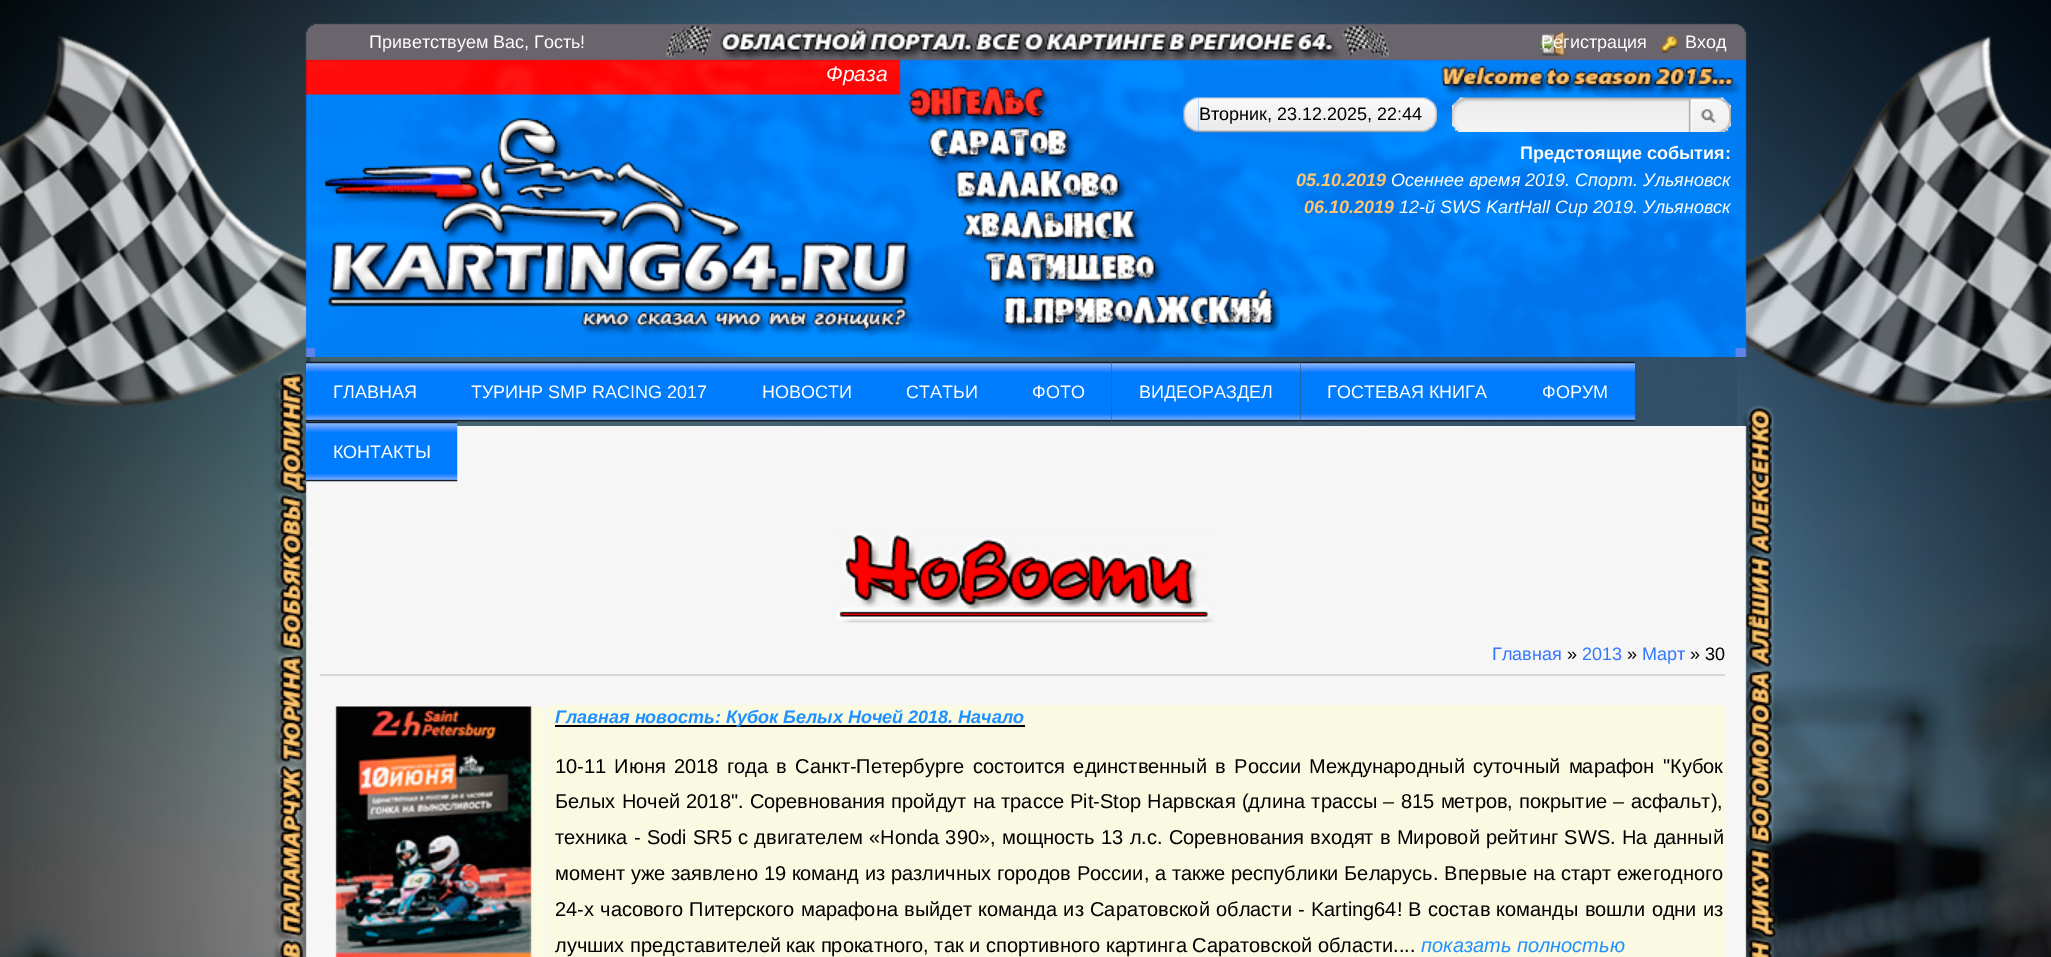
%!PS
<< /PageSize [2051 957] >> setpagedevice
/mt/moveto load def
/co { dup -16 bitshift 255 div exch dup -8 bitshift 255 and 255 div exch 255 and 255 div setrgbcolor } def
/fn { [ exch dup neg 0 0 3 -1 roll 0 0 ] selectfont } def
/tx { co fn moveto show } def
/bx { co rectfill } def
/im { 5 dict begin { /h /w /y /x /name } { exch def } forall
  gsave x y translate w h scale
  w h 8 [w 0 0 h 0 0] name (r) file false 3 colorimage grestore end } def
0 957 translate 1 -1 scale
4 setmiterlimit
0 0 2051 957 16#FFFFFF bx
(media/1.raw) 0 0 2051 957 im
(media/2.raw) 305 23 1442 334 im
(media/3.raw) 1540 31 25 25 im
(media/4.raw) 1662 35 15 18 im
(media/6.raw) 1198 97 224 37 im
(media/5.raw) 1183 97 16 37 im
(media/7.raw) 1422 97 15 37 im
(media/8.raw) 1452 97 279 35 im
(media/9.raw) 306 361 138 61 im
(media/10.raw) 444 361 291 61 im
(media/11.raw) 735 361 144 61 im
(media/12.raw) 879 361 126 61 im
(media/13.raw) 1005 361 107 61 im
(media/14.raw) 1111 361 190 61 im
(media/15.raw) 1300 361 215 61 im
(media/16.raw) 1515 361 120 61 im
(media/18.raw) 296 426 1461 531 im
(media/17.raw) 306 421 152 61 im
(media/19.raw) 833 532 382 91 im
320 674 1405 2 16#D6D6D6 bx
(media/20.raw) 333 706 213 251 im
548 705 1177 252 16#FAFAE3 bx
555 725 470 2 16#000000 bx
(Приветствуем Вас, Гость!) 369 48 /LiberationSans-Regular 18 16#FFFFFF tx
(Регистрация) 1541 48 /LiberationSans-Regular 18 16#FFFFFF tx
(Вход) 1685 48 /LiberationSans-Regular 18 16#FFFFFF tx
(Фраза) 826 81 /LiberationSans-Italic 21 16#FFFFFF tx
(Вторник, 23.12.2025, 22:44) 1199 120 /LiberationSans-Regular 18 16#000000 tx
(Предстоящие события:) 1520 159 /LiberationSans-Bold 18 16#FFFFFF tx
(05.10.2019) 1296 186 /LiberationSans-BoldItalic 18 16#FFC46F tx
(Осеннее время 2019. Спорт. Ульяновск) 1391 186 /LiberationSans-Italic 18 16#FFFFFF tx
(06.10.2019) 1304 213 /LiberationSans-BoldItalic 18 16#FFC46F tx
(12-й SWS KartHall Cup 2019. Ульяновск) 1399 213 /LiberationSans-Italic 18 16#FFFFFF tx
(ГЛАВНАЯ) 333 398 /LiberationSans-Regular 18 16#FFFFFF tx
(ТУРИНР SMP RACING 2017) 471 398 /LiberationSans-Regular 18 16#FFFFFF tx
(НОВОСТИ) 762 398 /LiberationSans-Regular 18 16#FFFFFF tx
(СТАТЬИ) 906 398 /LiberationSans-Regular 18 16#FFFFFF tx
(ФОТО) 1032 398 /LiberationSans-Regular 18 16#FFFFFF tx
(ВИДЕОРАЗДЕЛ) 1139 398 /LiberationSans-Regular 18 16#FFFFFF tx
(ГОСТЕВАЯ КНИГА) 1327 398 /LiberationSans-Regular 18 16#FFFFFF tx
(ФОРУМ) 1542 398 /LiberationSans-Regular 18 16#FFFFFF tx
(КОНТАКТЫ) 333 458 /LiberationSans-Regular 18 16#FFFFFF tx
(Главная) 1492 660 /LiberationSans-Regular 18 16#3376FE tx
(») 1567 660 /LiberationSans-Regular 18 16#000000 tx
(2013) 1582 660 /LiberationSans-Regular 18 16#3376FE tx
(») 1627 660 /LiberationSans-Regular 18 16#000000 tx
(Март) 1642 660 /LiberationSans-Regular 18 16#3376FE tx
(» 30) 1690 660 /LiberationSans-Regular 18 16#000000 tx
(Главная новость: Кубок Белых Ночей 2018. Начало) 555 723 /LiberationSans-BoldItalic 18 16#1E90FF tx
/LiberationSans-Regular 20 fn
16#000000 co
555 773 mt 2.75 0 32 (10-11 Июня 2018 года в Санкт-Петербурге состоится единственный в России Международный суточный марафон "Кубок) widthshow
555 808 mt .75 0 32 (Белых Ночей 2018". Соревнования пройдут на трассе Pit-Stop Нарвская \(длина трассы – 815 метров, покрытие – асфальт\),) widthshow
555 844 mt .7 0 32 (техника - Sodi SR5 с двигателем «Honda 390», мощность 13 л.с. Соревнования входят в Мировой рейтинг SWS. На данный) widthshow
555 880 mt .25 0 32 (момент уже заявлено 19 команд из различных городов России, а также республики Беларусь. Впервые на старт ежегодного) widthshow
555 916 mt .75 0 32 (24-х часового Питерского марафона выйдет команда из Саратовской области - Karting64! В состав команды вошли одни из) widthshow
(лучших представителей как прокатного, так и спортивного картинга Саратовской области....) 555 952 /LiberationSans-Regular 20 16#000000 tx
(показать полностью) 1421 952 /LiberationSans-Italic 20 16#1E90FF tx
showpage
